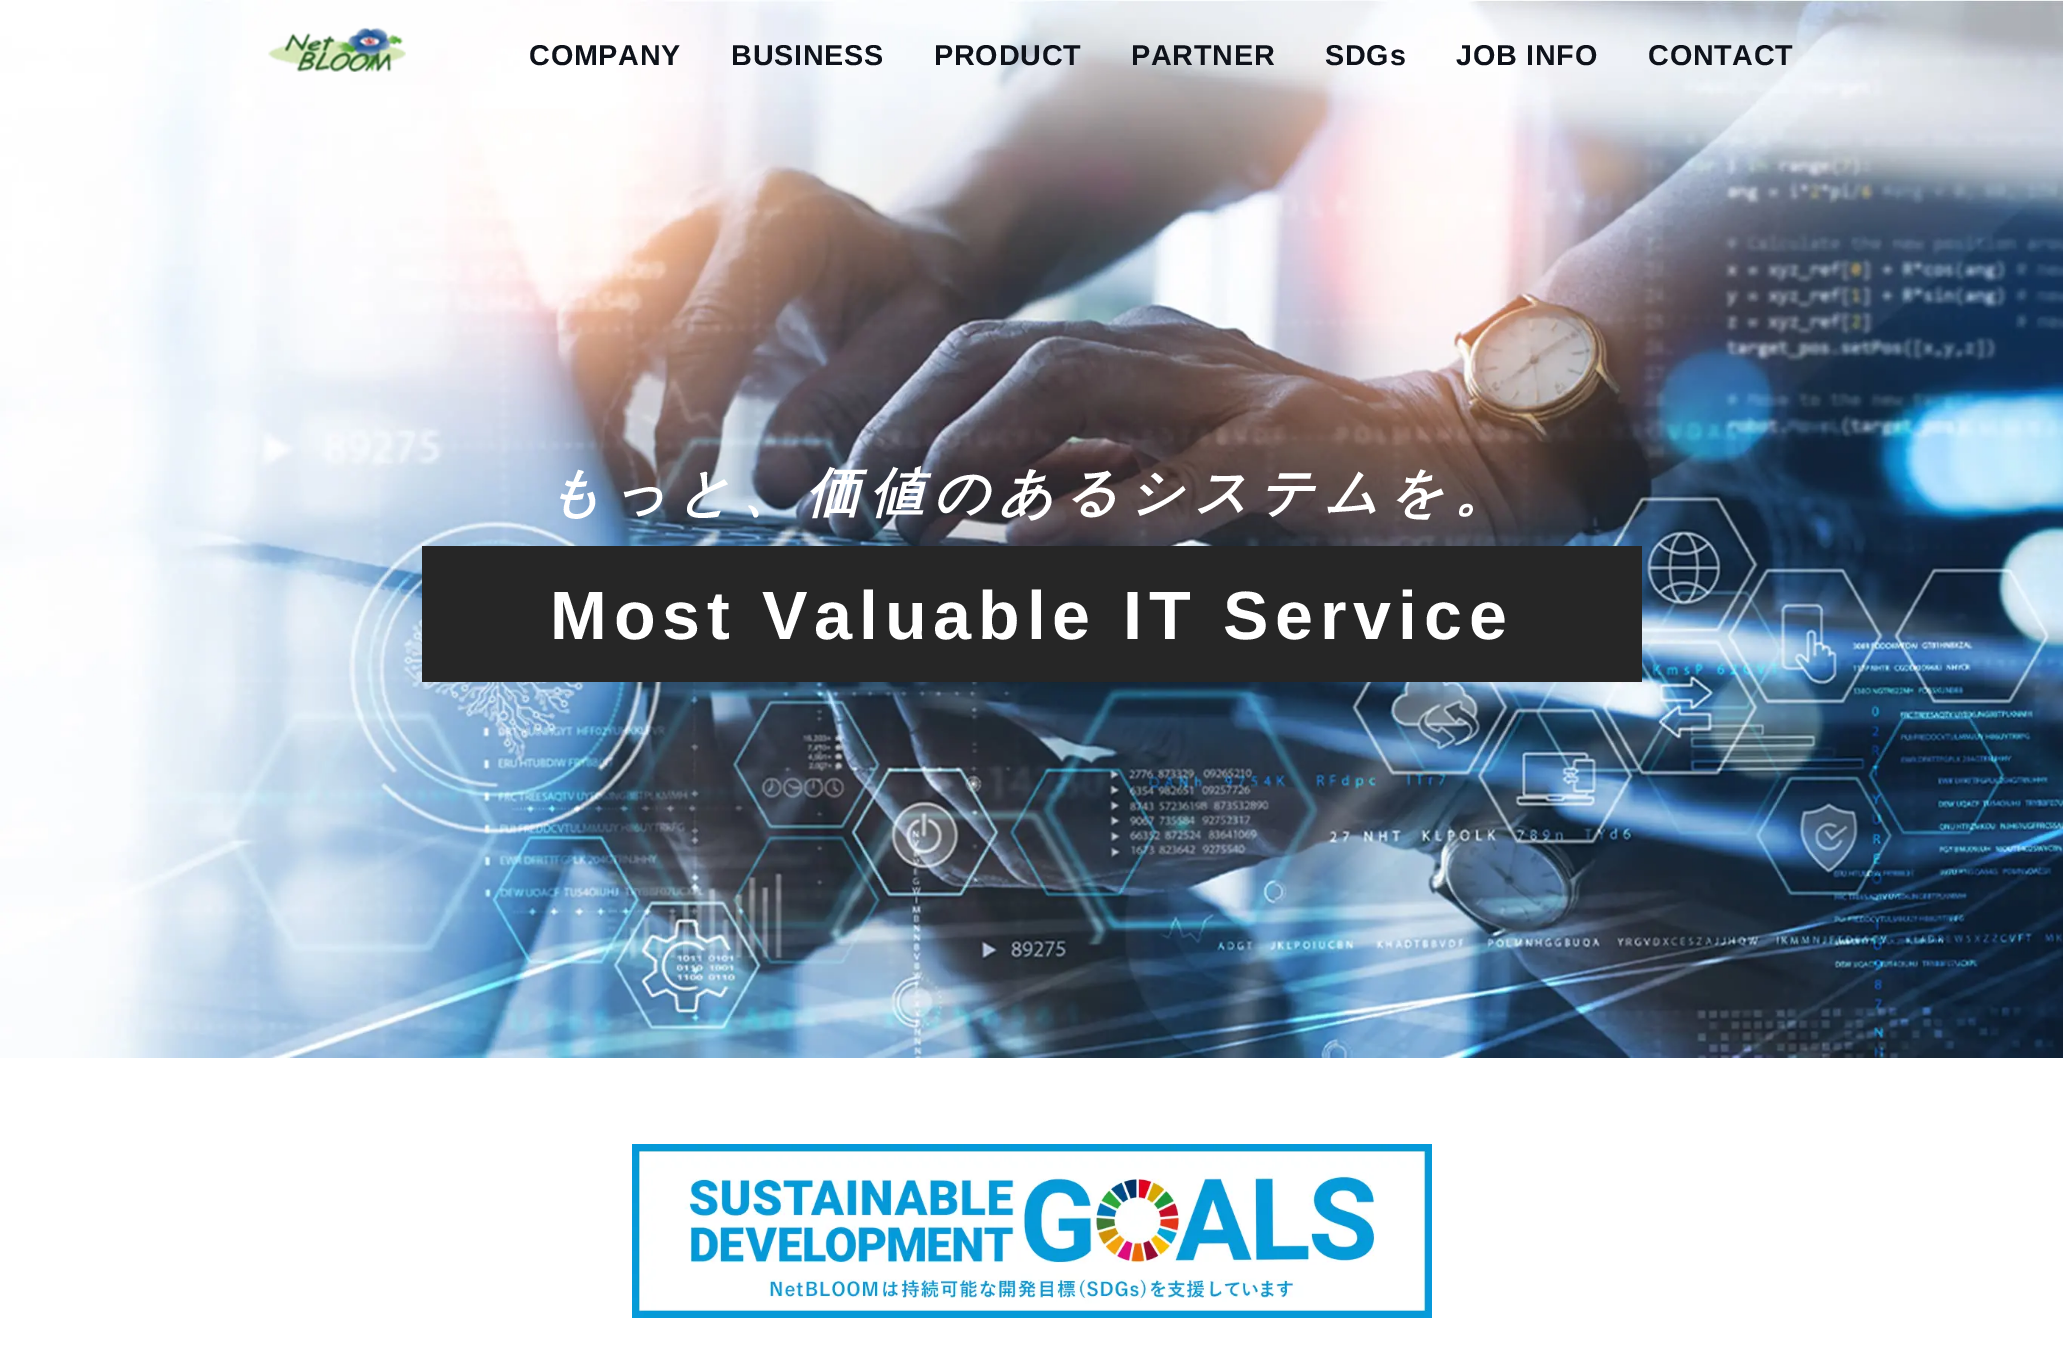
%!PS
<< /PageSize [2063 1369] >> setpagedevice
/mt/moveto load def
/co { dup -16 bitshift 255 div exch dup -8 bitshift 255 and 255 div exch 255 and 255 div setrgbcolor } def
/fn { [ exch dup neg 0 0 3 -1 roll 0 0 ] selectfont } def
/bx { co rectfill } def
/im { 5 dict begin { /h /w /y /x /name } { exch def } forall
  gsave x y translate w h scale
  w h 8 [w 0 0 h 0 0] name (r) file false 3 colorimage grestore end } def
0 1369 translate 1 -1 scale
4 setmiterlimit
0 0 2063 1369 16#FFFFFF bx
(media/2.raw) 0 0 2063 1058 im
(media/1.raw) 268 27 138 45 im
422 546 1220 136 16#262626 bx
(media/3.raw) 632 1144 800 174 im
/LiberationSans-Bold 28.75 fn
16#0E121A co
529 65 mt .75 0 (COMPANY) ashow
731 65 mt .75 0 (BUSINESS) ashow
934 65 mt .75 0 (PRODUCT) ashow
1131 65 mt .75 0 (PARTNER) ashow
1325 65 mt .75 0 (SDGs) ashow
1456 65 mt .75 0 (JOB INFO) ashow
1648 65 mt .75 0 (CONTACT) ashow
/WenQuanYiZenHei-BoldItalic 53.8 fn
16#FFFFFF co
547 511 mt 10 0 (もっと、価値のあるシステムを。) ashow
/LiberationSans-Bold 68.25 fn
550 639 mt 6.8 0 (Most Valuable IT Service) ashow
showpage
